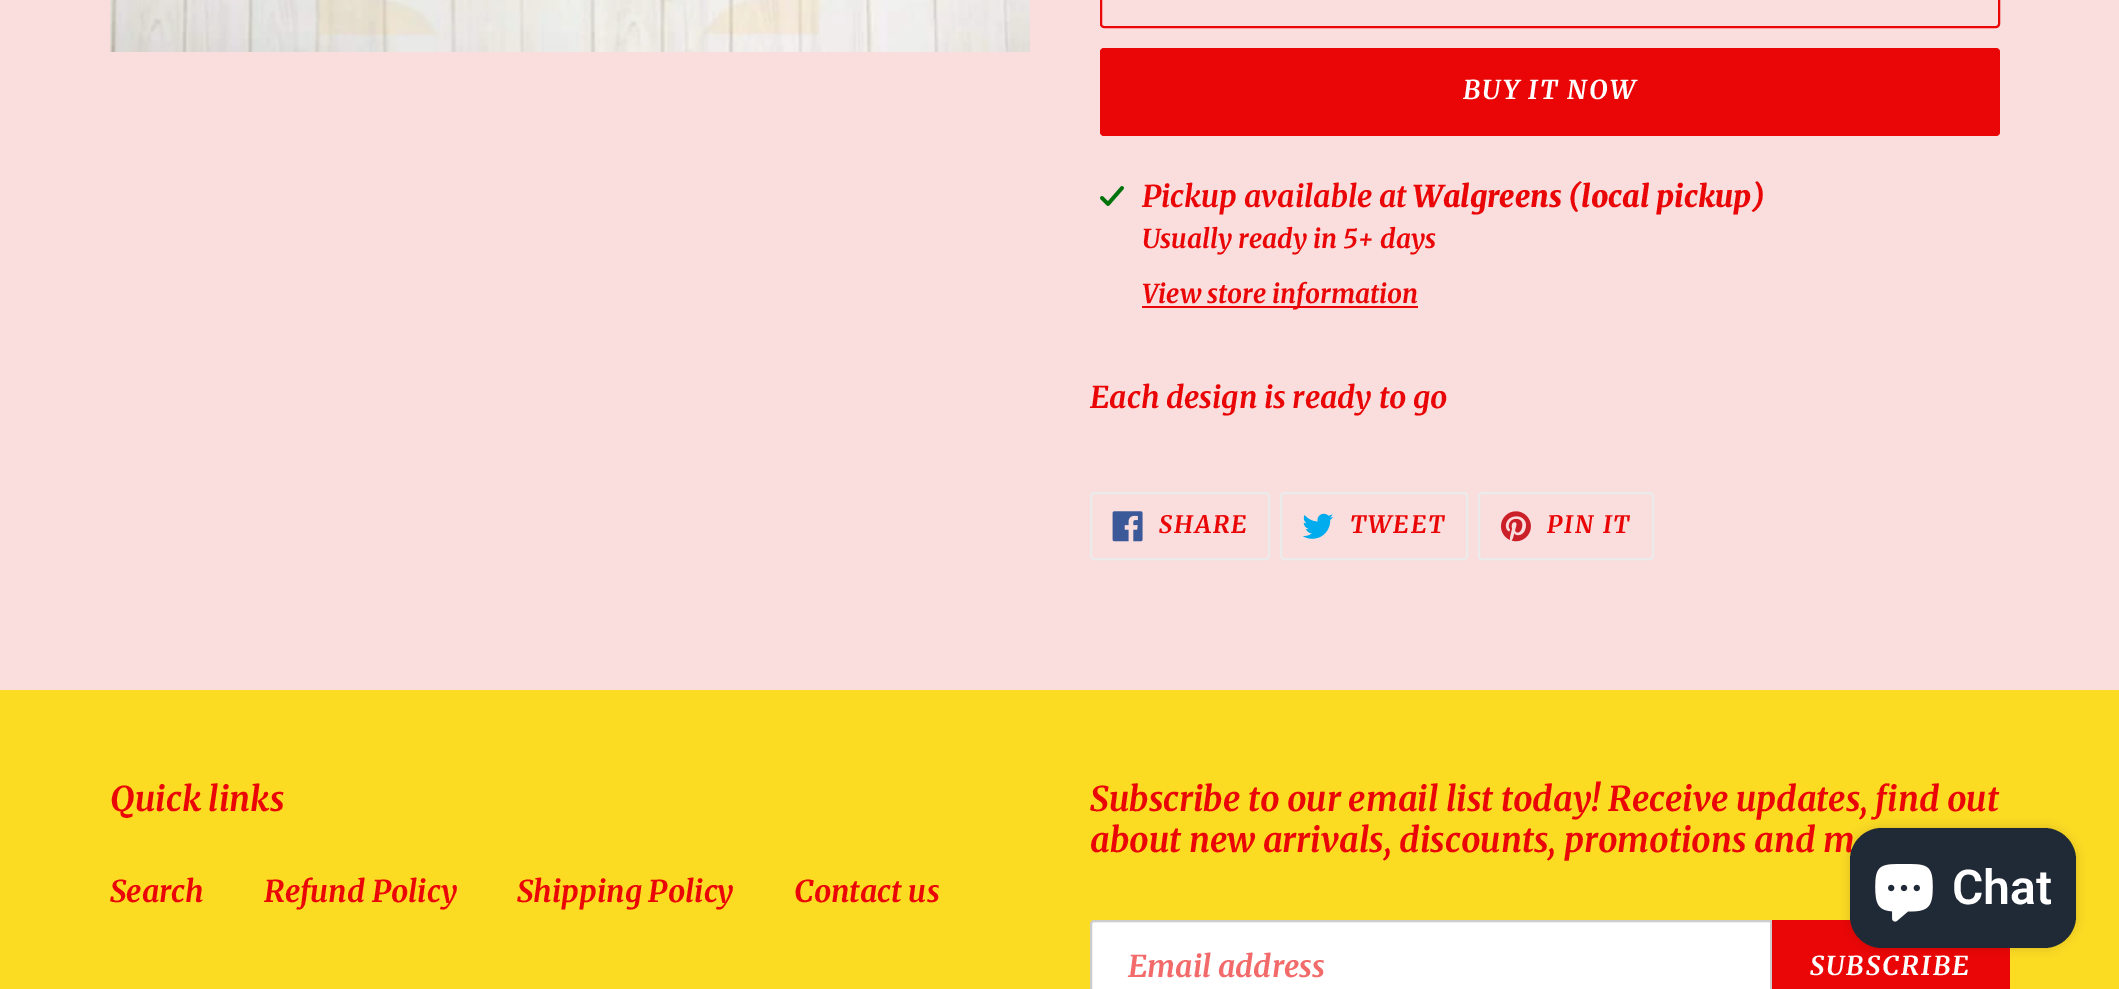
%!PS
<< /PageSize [2119 989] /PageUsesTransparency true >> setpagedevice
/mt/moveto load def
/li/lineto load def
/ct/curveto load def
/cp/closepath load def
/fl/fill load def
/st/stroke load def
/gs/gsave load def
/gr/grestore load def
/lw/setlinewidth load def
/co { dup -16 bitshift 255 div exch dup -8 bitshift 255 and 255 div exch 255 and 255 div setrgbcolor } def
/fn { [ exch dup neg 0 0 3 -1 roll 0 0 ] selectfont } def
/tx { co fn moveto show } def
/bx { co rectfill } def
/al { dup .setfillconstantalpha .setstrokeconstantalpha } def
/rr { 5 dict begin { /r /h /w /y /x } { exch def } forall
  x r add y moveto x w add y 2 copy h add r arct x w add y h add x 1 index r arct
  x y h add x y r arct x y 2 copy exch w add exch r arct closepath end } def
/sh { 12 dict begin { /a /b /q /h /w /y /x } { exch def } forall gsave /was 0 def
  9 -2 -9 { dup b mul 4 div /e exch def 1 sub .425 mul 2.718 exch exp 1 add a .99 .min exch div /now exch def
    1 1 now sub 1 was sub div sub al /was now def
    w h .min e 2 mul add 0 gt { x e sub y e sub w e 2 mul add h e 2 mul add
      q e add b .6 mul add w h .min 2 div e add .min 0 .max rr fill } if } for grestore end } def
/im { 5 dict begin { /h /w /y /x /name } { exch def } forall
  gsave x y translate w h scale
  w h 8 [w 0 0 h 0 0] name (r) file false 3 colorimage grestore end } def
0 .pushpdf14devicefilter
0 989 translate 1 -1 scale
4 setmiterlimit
0 0 2119 989 16#FADDDD bx
(media/1.raw) 110 0 920 52 im
16#EA0606 co
2 lw
1101 -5 898 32 3 rr st
1100 48 900 88 4 rr fl
(media/2.raw) 1100 186 24 20 im
1142 306 276 2 16#EA0606 bx
16#EBEBEB co
1091 493 178 66 3 rr st
(media/3.raw) 1112 511 31 31 im
1281 493 186 66 3 rr st
(media/4.raw) 1302 513 32 26 im
1479 493 174 66 3 rr st
(media/5.raw) 1500 511 31 31 im
0 690 2119 299 16#FCDB23 bx
16#FFFFFF co
1094 921 mt 1771 921 li 1771 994 li 1094 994 li 1092.5 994 1091 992.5 1091 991 ct 1091 924 li 1091 922.5 1092.5 921 1094 921 ct cp gs fl gr
16#CCCCCC co
st
1772 920 238 69 16#EA0606 bx
16#000000 co
1850 828 226 120 32 5 .15 sh
/Merriweather-BoldItalic 26 fn
16#FFFFFF co
1463 99 mt 2 0 (BUY IT NOW) ashow
(Pickup available at) 1142 207 /Merriweather-BoldItalic 30 16#EA0606 tx
(Walgreens \(local pickup\)) 1413 207 /Merriweather-BlackItalic 30 16#EA0606 tx
(Usually ready in 5+ days) 1142 248 /Merriweather-BoldItalic 26 16#EA0606 tx
(View store information) 1142 303 /Merriweather-BoldItalic 26 16#EA0606 tx
(Each design is ready to go) 1090 408 /Merriweather-BoldItalic 30 16#EA0606 tx
/Merriweather-BoldItalic 24 fn
1159 533 mt 2 0 (SHARE) ashow
1350 533 mt 2 0 (TWEET) ashow
1547 533 mt 2 0 (PIN IT) ashow
(Quick links) 110 811 /Merriweather-BoldItalic 34 16#EA0606 tx
(Search) 110 902 /Merriweather-BoldItalic 30 16#EA0606 tx
(Refund Policy) 264 902 /Merriweather-BoldItalic 30 16#EA0606 tx
(Shipping Policy) 517 902 /Merriweather-BoldItalic 30 16#EA0606 tx
(Contact us) 794 902 /Merriweather-BoldItalic 30 16#EA0606 tx
(Subscribe to our email list today! Receive updates, find out) 1090 811 /Merriweather-BoldItalic 34 16#EA0606 tx
(about new arrivals, discounts, promotions and m) 1090 852 /Merriweather-BoldItalic 34 16#EA0606 tx
(Email address) 1128 977 /Merriweather-BoldItalic 30 16#F26A6A tx
/Merriweather-BoldItalic 26 fn
16#FFFFFF co
1810 975 mt 2 0 (SUBSCRIBE) ashow
16#202A36 co
1850 828 226 120 32 rr fl
(media/6.raw) 1875 864 58 58 im
(Chat) 1952 904 /Roboto-SemiBold 48 16#FFFFFF tx
.poppdf14devicefilter showpage
